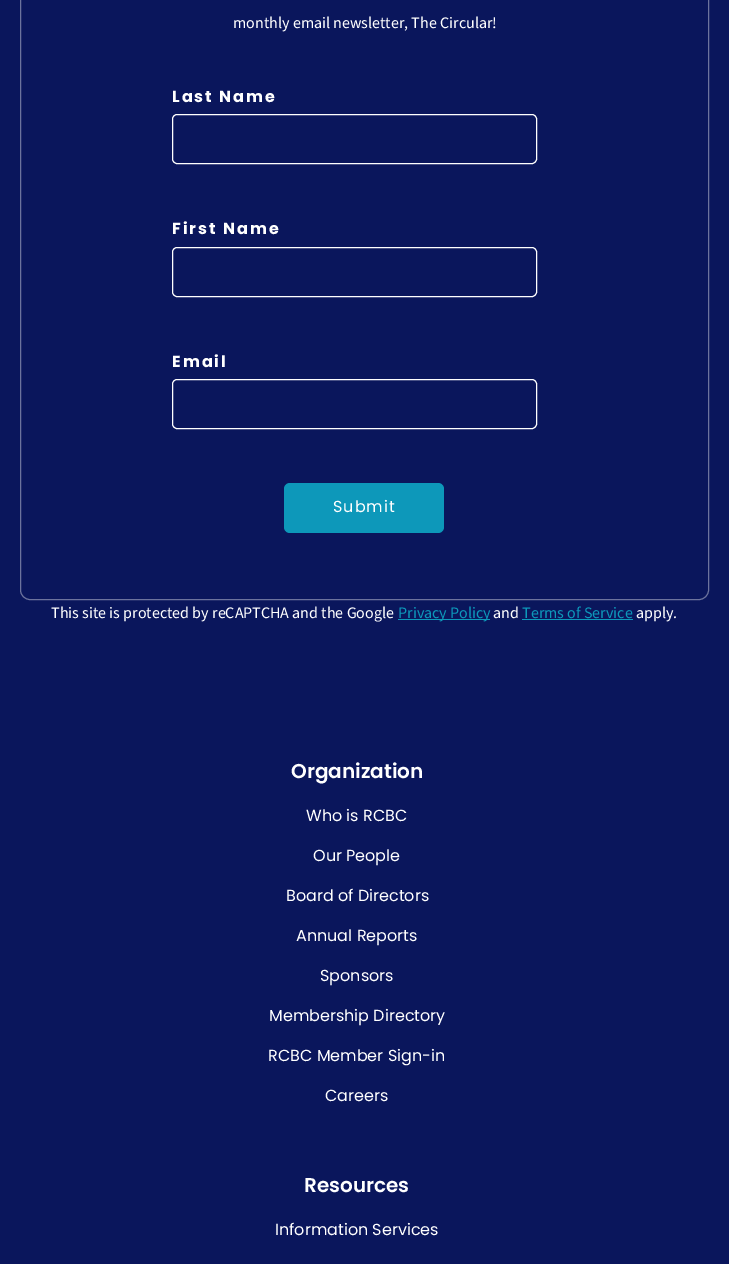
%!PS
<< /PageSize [729 1264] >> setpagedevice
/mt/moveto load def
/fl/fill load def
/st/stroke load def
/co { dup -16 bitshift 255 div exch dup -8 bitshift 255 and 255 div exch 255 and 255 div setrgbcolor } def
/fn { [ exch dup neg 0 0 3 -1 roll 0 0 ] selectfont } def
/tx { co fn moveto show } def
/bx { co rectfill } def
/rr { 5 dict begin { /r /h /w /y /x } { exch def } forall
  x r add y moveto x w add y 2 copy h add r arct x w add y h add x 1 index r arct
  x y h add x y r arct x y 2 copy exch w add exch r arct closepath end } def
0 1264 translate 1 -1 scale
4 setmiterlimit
0 0 729 1264 16#0A165C bx
16#6C739D co
20.5 -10.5 688 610 9.5 rr st
16#FFFFFF co
172.5 114.5 364 49 4.5 rr st
172.5 247.5 364 49 4.5 rr st
172.5 379.5 364 49 4.5 rr st
16#0D98BA co
284 483 160 50 6 rr fl
398 619 92 1 16#0D98BA bx
522 619 111 1 16#0D98BA bx
(monthly email newsletter, The Circular!) 233 28 /SourceSansPro-Regular 16 16#FFFFFF tx
/Poppins-Bold 16 fn
172 102 mt 2 0 (Last Name) ashow
172 234 mt 2 0 (First Name) ashow
172 367 mt 2 0 (Email) ashow
/Poppins-Regular 16 fn
333 512 mt 1 0 (Submit) ashow
(This site is protected by reCAPTCHA and the Google) 51 618 /SourceSansPro-Regular 16 16#FFFFFF tx
(Privacy Policy) 398 618 /SourceSansPro-Regular 16 16#0D98BA tx
(and) 493 618 /SourceSansPro-Regular 16 16#FFFFFF tx
(Terms of Service) 522 618 /SourceSansPro-Regular 16 16#0D98BA tx
(apply.) 636 618 /SourceSansPro-Regular 16 16#FFFFFF tx
(Organization) 291 778 /Poppins-SemiBold 20 16#FFFFFF tx
(Who is RCBC) 306 821 /Poppins-Regular 16 16#FFFFFF tx
(Our People) 313 861 /Poppins-Regular 16 16#FFFFFF tx
(Board of Directors) 286 901 /Poppins-Regular 16 16#FFFFFF tx
(Annual Reports) 296 941 /Poppins-Regular 16 16#FFFFFF tx
(Sponsors) 320 981 /Poppins-Regular 16 16#FFFFFF tx
(Membership Directory) 269 1021 /Poppins-Regular 16 16#FFFFFF tx
(RCBC Member Sign-in) 268 1061 /Poppins-Regular 16 16#FFFFFF tx
(Careers) 325 1101 /Poppins-Regular 16 16#FFFFFF tx
(Resources) 304 1192 /Poppins-SemiBold 20 16#FFFFFF tx
(Information Services) 275 1235 /Poppins-Regular 16 16#FFFFFF tx
showpage
